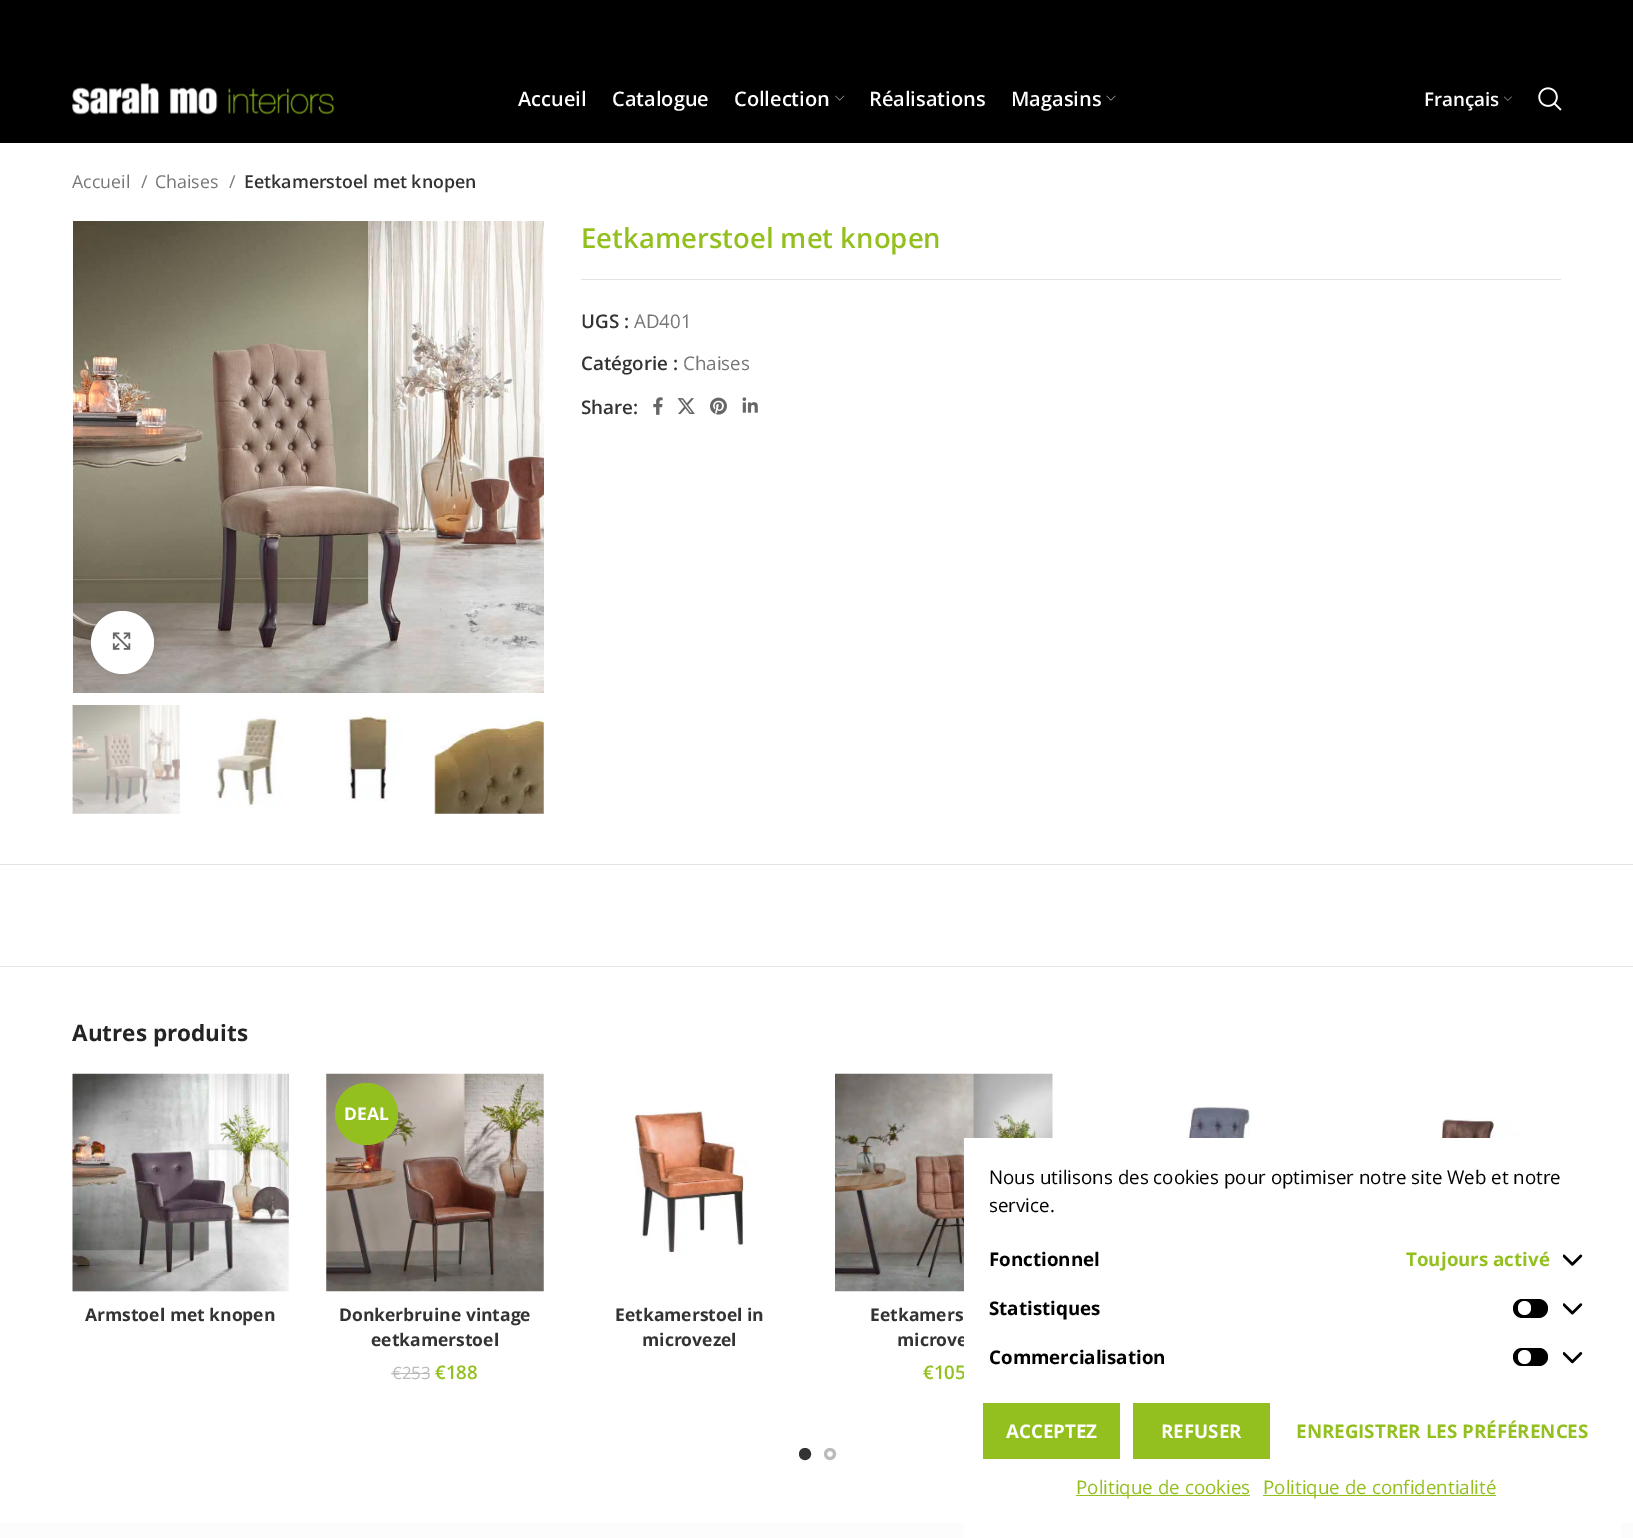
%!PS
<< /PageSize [1633 1538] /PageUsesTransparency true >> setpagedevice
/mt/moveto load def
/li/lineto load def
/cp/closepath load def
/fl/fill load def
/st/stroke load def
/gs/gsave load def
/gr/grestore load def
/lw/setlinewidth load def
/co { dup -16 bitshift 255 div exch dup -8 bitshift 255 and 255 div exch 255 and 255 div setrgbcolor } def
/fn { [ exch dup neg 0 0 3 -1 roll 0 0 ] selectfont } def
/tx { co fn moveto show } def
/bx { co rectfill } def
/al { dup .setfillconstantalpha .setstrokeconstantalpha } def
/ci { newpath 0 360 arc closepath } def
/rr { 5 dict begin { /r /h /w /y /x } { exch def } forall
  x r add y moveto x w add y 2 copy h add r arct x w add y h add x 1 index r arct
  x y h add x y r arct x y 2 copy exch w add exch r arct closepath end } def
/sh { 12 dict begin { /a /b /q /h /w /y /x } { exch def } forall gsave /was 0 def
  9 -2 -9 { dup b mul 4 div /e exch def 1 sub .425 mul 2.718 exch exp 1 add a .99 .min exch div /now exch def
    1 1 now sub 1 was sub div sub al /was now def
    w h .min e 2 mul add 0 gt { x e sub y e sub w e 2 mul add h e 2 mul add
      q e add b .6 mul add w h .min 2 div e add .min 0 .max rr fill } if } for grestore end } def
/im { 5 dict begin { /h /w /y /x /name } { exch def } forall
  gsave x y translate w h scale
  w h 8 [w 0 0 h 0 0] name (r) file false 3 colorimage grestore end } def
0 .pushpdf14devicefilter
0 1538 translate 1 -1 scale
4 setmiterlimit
0 0 1633 1538 16#FFFFFF bx
0 0 1633 143 16#000000 bx
(media/1.raw) 72 83 263 32 im
(media/2.raw) 835 95 10 6 im
(media/3.raw) 1106 95 10 6 im
(media/4.raw) 1503 96 9 5 im
(media/5.raw) 1538 87 24 24 im
(media/6.raw) 73 221 471 472 im
16#FFFFFF co
73.5 443.5 mt 71.5 441.5 li 57.5 455.5 li 71.5 469.5 li 73.5 468 li 61 455.5 li cp fl
16#000000 co
91 611 63 63 31.5 3 .08 sh
16#FFFFFF co
122.5 642.5 31.5 ci fl
(media/7.raw) 112 632 19 18 im
(media/8.raw) 72 705 108 109 im
(media/9.raw) 215 716 68 93 im
(media/10.raw) 345 714 59 87 im
(media/11.raw) 434 716 110 98 im
581 279 980 1 16#E4E4E4 bx
(media/12.raw) 653 397 10 18 im
(media/13.raw) 677 398 18 16 im
(media/14.raw) 710 397 17 18 im
(media/15.raw) 742 397 16 16 im
0 864 1633 1 16#E4E4E4 bx
0 966 1633 1 16#E4E4E4 bx
(media/16.raw) 326 1073 218 219 im
16#93C01F co
335 1083 63 62 31 rr fl
391 1373 39 1 16#BBBBBB bx
(media/17.raw) 1154 1106 97 32 im
(media/18.raw) 1409 1118 149 20 im
(media/19.raw) 72 1073 217 219 im
(media/20.raw) 633 1109 120 151 im
(media/21.raw) 835 1073 218 219 im
16#333333 co
805 1454 4.5 ci gs fl gr
3 lw
st
16#BBBBBB co
830 1454 4.5 ci st
0 1523 1633 15 16#FCFCFC bx
(Accueil) 518 106 /OpenSans-SemiBold 20 16#FFFFFF tx
(Catalogue) 612 106 /OpenSans-SemiBold 20 16#FFFFFF tx
(Collection) 734 106 /OpenSans-SemiBold 20 16#FFFFFF tx
(Réalisations) 869 106 /OpenSans-SemiBold 20 16#FFFFFF tx
(Magasins) 1011 106 /OpenSans-SemiBold 20 16#FFFFFF tx
(Français) 1424 106 /OpenSans-SemiBold 18.75 16#FFFFFF tx
(Accueil) 72 188 /OpenSans-Regular 17.75 16#767676 tx
(/) 141 188 /OpenSans-Regular 17.75 16#767676 tx
(Chaises) 155 188 /OpenSans-Regular 17.75 16#767676 tx
(/) 229 188 /OpenSans-Regular 17.75 16#767676 tx
(Eetkamerstoel met knopen) 244 188 /OpenSans-SemiBold 17.75 16#333333 tx
(Eetkamerstoel met knopen) 581 248 /OpenSans-SemiBold 27.5 16#93C01F tx
(UGS :) 581 328 /OpenSans-SemiBold 18.75 16#333333 tx
(AD401) 634 328 /OpenSans-Regular 18.75 16#767676 tx
(Catégorie :) 581 370 /OpenSans-SemiBold 18.75 16#333333 tx
(Chaises) 683 370 /OpenSans-Regular 18.75 16#767676 tx
(Share:) 581 414 /OpenSans-SemiBold 18.75 16#333333 tx
(Autres produits) 72 1041 /OpenSans-Bold 22.5 16#242424 tx
(DEAL) 344 1120 /OpenSans-Bold 17.5 16#FFFFFF tx
(Donkerbruine vintage) 339 1321 /OpenSans-Bold 17.5 16#333333 tx
(eetkamerstoel) 371 1346 /OpenSans-Bold 17.5 16#333333 tx
(€253) 392 1379 /OpenSans-Regular 17 16#BBBBBB tx
(€188) 435 1379 /OpenSans-SemiBold 18.75 16#93C01F tx
(Armstoel met knopen) 85 1321 /OpenSans-Bold 17.5 16#333333 tx
(Eetkamerstoel in) 615 1321 /OpenSans-Bold 17.5 16#333333 tx
(microvezel) 642 1346 /OpenSans-Bold 17.5 16#333333 tx
(Eetkamers) 870 1321 /OpenSans-Bold 17.5 16#333333 tx
(microve) 897 1346 /OpenSans-Bold 17.5 16#333333 tx
(€105) 923 1379 /OpenSans-SemiBold 18.75 16#93C01F tx
964 1138 657 400 16#FFFFFF bx
(Nous utilisons des cookies pour optimiser notre site Web et notre) 989 1184 /OpenSans-Regular 18.75 16#000000 tx
(service.) 989 1212 /OpenSans-Regular 18.75 16#000000 tx
(Fonctionnel) 989 1266 /OpenSans-Bold 18.75 16#000000 tx
(Toujours activé) 1406 1266 /OpenSans-Bold 18.75 16#93C01F tx
(media/22.raw) 1563 1254 20 12 im
(Statistiques) 989 1315 /OpenSans-Bold 18.75 16#000000 tx
1513 1299 35 19 9.5 rr fl
16#FFFFFF co
1518 1301 13 14 6.5 rr fl
(media/23.raw) 1563 1303 20 12 im
(Commercialisation) 989 1364 /OpenSans-Bold 18.75 16#000000 tx
1513 1348 35 18 9 rr fl
16#FFFFFF co
1518 1350 13 14 6.5 rr fl
(media/24.raw) 1563 1352 20 12 im
983 1403 137 56 16#93C01F bx
(ACCEPTEZ) 1006 1438 /OpenSans-Bold 18.75 16#FFFFFF tx
1133 1403 137 56 16#93C01F bx
(REFUSER) 1161 1438 /OpenSans-Bold 18.75 16#FFFFFF tx
(ENREGISTRER LES PRÉFÉRENCES) 1296 1438 /OpenSans-Bold 18.75 16#93C01F tx
1076 1495 174 1 16#93C01F bx
(Politique de cookies) 1076 1494 /OpenSans-Regular 18.75 16#93C01F tx
1263 1495 233 1 16#93C01F bx
(Politique de confidentialité) 1263 1494 /OpenSans-Regular 18.75 16#93C01F tx
.poppdf14devicefilter showpage
